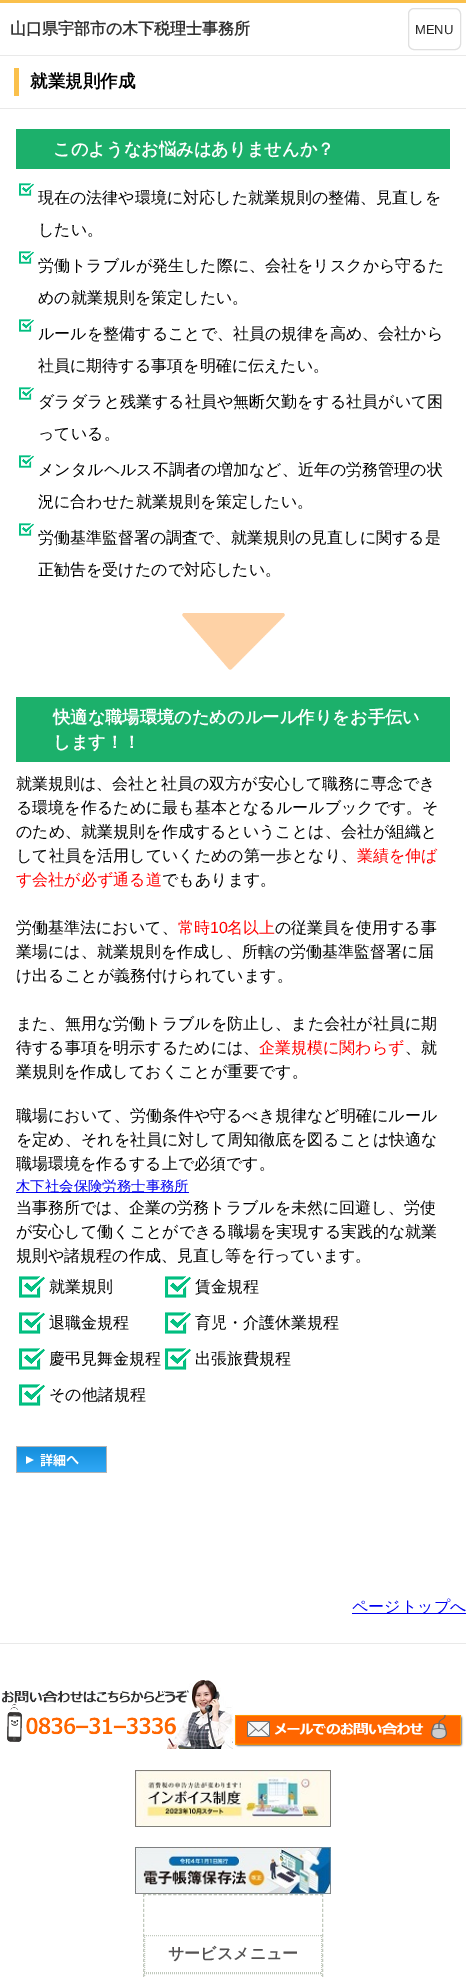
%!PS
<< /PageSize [466 1977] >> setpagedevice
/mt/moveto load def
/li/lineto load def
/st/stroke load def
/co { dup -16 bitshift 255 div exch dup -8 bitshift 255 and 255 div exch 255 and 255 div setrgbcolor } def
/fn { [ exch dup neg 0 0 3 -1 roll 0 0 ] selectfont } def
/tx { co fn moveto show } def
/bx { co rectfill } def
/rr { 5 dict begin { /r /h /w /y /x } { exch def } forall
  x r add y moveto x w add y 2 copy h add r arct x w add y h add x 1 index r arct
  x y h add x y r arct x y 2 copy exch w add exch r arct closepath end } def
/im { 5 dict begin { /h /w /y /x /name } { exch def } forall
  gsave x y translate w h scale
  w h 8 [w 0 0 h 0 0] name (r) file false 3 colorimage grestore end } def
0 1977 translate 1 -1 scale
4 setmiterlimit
0 0 466 1977 16#FFFFFF bx
0 0 466 3 16#FAC04B bx
16#E0E0E0 co
408.5 8.5 52 41 5.5 rr st
0 55 466 1 16#E9E9E9 bx
0 108 466 1 16#E9E9E9 bx
14 68 5 28 16#FAC04B bx
23 130 426 38 16#1CB06B bx
16 129 434 1 16#1CB06B bx
449 129 1 40 16#1CB06B bx
16 168 434 1 16#1CB06B bx
16 129 7 40 16#1CB06B bx
(media/1.raw) 19 183 15 13 im
(media/1.raw) 19 251 15 13 im
(media/1.raw) 19 319 15 13 im
(media/1.raw) 19 387 15 13 im
(media/1.raw) 19 455 15 13 im
(media/1.raw) 19 523 15 13 im
(media/2.raw) 182 613 103 57 im
23 698 426 63 16#1CB06B bx
16 697 434 1 16#1CB06B bx
449 697 1 65 16#1CB06B bx
16 761 434 1 16#1CB06B bx
16 697 7 65 16#1CB06B bx
16 1192 173 1 16#0000EE bx
(media/3.raw) 19 1276 26 22 im
(media/3.raw) 165 1276 26 22 im
(media/3.raw) 19 1312 26 22 im
(media/3.raw) 165 1312 26 22 im
(media/3.raw) 19 1348 26 22 im
(media/3.raw) 165 1348 26 22 im
(media/3.raw) 19 1384 26 22 im
(media/4.raw) 16 1446 91 27 im
0 1643 466 1 16#E9E9E9 bx
352 1613 114 1 16#0000EE bx
(media/5.raw) 1 1680 232 69 im
(media/6.raw) 234 1714 230 34 im
(media/7.raw) 135 1770 196 57 im
(media/8.raw) 135 1847 196 47 im
16#C1C9BD co
[3 2.06] 0 setdash
143 1894.5 mt 323 1894.5 li st
[3 1.99] 0 setdash
322.5 1894 mt 322.5 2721 li st
143.5 1894 mt 143.5 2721 li st
[1 1] 0 setdash
144 1935.5 mt 322 1935.5 li st
321.5 1935 mt 321.5 1973 li st
144 1972.5 mt 322 1972.5 li st
144.5 1935 mt 144.5 1973 li st
144 1973.5 mt 322 1973.5 li st
321.5 1973 mt 321.5 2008 li st
144.5 1973 mt 144.5 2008 li st
(山口県宇部市の木下税理士事務所) 10 34 /WenQuanYiZenHei-Bold 16 16#333333 tx
(MENU) 415 34 /LiberationSans-Regular 13 16#292929 tx
(就業規則作成) 30 87 /WenQuanYiZenHei-Bold 17.5 16#000000 tx
(このようなお悩みはありませんか？) 53 155 /WenQuanYiZenHei-Bold 17.25 16#FFFFFF tx
(現在の法律や環境に対応した就業規則の整備、見直しを) 38 203 /WenQuanYiZenHei-Medium 16 16#000000 tx
(したい。) 38 235 /WenQuanYiZenHei-Medium 16 16#000000 tx
(労働トラブルが発生した際に、会社をリスクから守るた) 38 271 /WenQuanYiZenHei-Medium 16 16#000000 tx
(めの就業規則を策定したい。) 38 303 /WenQuanYiZenHei-Medium 16 16#000000 tx
(ルールを整備することで、社員の規律を高め、会社から) 38 339 /WenQuanYiZenHei-Medium 16 16#000000 tx
(社員に期待する事項を明確に伝えたい。) 38 371 /WenQuanYiZenHei-Medium 16 16#000000 tx
(ダラダラと残業する社員や無断欠勤をする社員がいて困) 38 407 /WenQuanYiZenHei-Medium 16 16#000000 tx
(っている。) 38 439 /WenQuanYiZenHei-Medium 16 16#000000 tx
(メンタルヘルス不調者の増加など、近年の労務管理の状) 38 475 /WenQuanYiZenHei-Medium 16 16#000000 tx
(況に合わせた就業規則を策定したい。) 38 507 /WenQuanYiZenHei-Medium 16 16#000000 tx
(労働基準監督署の調査で、就業規則の見直しに関する是) 38 543 /WenQuanYiZenHei-Medium 16 16#000000 tx
(正勧告を受けたので対応したい。) 38 575 /WenQuanYiZenHei-Medium 16 16#000000 tx
(快適な職場環境のためのルール作りをお手伝い) 53 723 /WenQuanYiZenHei-Bold 17.25 16#FFFFFF tx
(します！！) 53 748 /WenQuanYiZenHei-Bold 17.25 16#FFFFFF tx
(就業規則は、会社と社員の双方が安心して職務に専念でき) 16 789 /WenQuanYiZenHei-Medium 16 16#000000 tx
(る環境を作るために最も基本となるルールブックです。そ) 16 813 /WenQuanYiZenHei-Medium 16 16#000000 tx
(のため、就業規則を作成するということは、会社が組織と) 16 837 /WenQuanYiZenHei-Medium 16 16#000000 tx
(して社員を活用していくための第一歩となり、) 16 861 /WenQuanYiZenHei-Medium 16 16#000000 tx
(業績を伸ば) 357 861 /WenQuanYiZenHei-Medium 16 16#FF0000 tx
(す会社が必ず通る道) 16 885 /WenQuanYiZenHei-Medium 16 16#FF0000 tx
(でもあります。) 162 885 /WenQuanYiZenHei-Medium 16 16#000000 tx
(労働基準法において、) 16 933 /WenQuanYiZenHei-Medium 16 16#000000 tx
(常時) 178 933 /WenQuanYiZenHei-Medium 16 16#FF0000 tx
(10) 210 933 /LiberationSans-Regular 16 16#FF0000 tx
(名以上) 227 933 /WenQuanYiZenHei-Medium 16 16#FF0000 tx
(の従業員を使用する事) 275 933 /WenQuanYiZenHei-Medium 16 16#000000 tx
(業場には、就業規則を作成し、所轄の労働基準監督署に届) 16 957 /WenQuanYiZenHei-Medium 16 16#000000 tx
(け出ることが義務付けられています。) 16 981 /WenQuanYiZenHei-Medium 16 16#000000 tx
(また、無用な労働トラブルを防止し、また会社が社員に期) 16 1029 /WenQuanYiZenHei-Medium 16 16#000000 tx
(待する事項を明示するためには、) 16 1053 /WenQuanYiZenHei-Medium 16 16#000000 tx
(企業規模に関わらず) 259 1053 /WenQuanYiZenHei-Medium 16 16#FF0000 tx
(、就) 405 1053 /WenQuanYiZenHei-Medium 16 16#000000 tx
(業規則を作成しておくことが重要です。) 16 1077 /WenQuanYiZenHei-Medium 16 16#000000 tx
(職場において、労働条件や守るべき規律など明確にルール) 16 1121 /WenQuanYiZenHei-Medium 16 16#000000 tx
(を定め、それを社員に対して周知徹底を図ることは快適な) 16 1145 /WenQuanYiZenHei-Medium 16 16#000000 tx
(職場環境を作るする上で必須です。) 16 1169 /WenQuanYiZenHei-Medium 16 16#000000 tx
(木下社会保険労務士事務所) 16 1191 /WenQuanYiZenHei-Medium 14.4 16#0000EE tx
(当事務所では、企業の労務トラブルを未然に回避し、労使) 16 1213 /WenQuanYiZenHei-Medium 16 16#000000 tx
(が安心して働くことができる職場を実現する実践的な就業) 16 1237 /WenQuanYiZenHei-Medium 16 16#000000 tx
(規則や諸規程の作成、見直し等を行っています。) 16 1261 /WenQuanYiZenHei-Medium 16 16#000000 tx
(就業規則) 49 1292 /WenQuanYiZenHei-Medium 16 16#000000 tx
(賃金規程) 195 1292 /WenQuanYiZenHei-Medium 16 16#000000 tx
(退職金規程) 49 1328 /WenQuanYiZenHei-Medium 16 16#000000 tx
(育児・介護休業規程) 195 1328 /WenQuanYiZenHei-Medium 16 16#000000 tx
(慶弔見舞金規程) 49 1364 /WenQuanYiZenHei-Medium 16 16#000000 tx
(出張旅費規程) 195 1364 /WenQuanYiZenHei-Medium 16 16#000000 tx
(その他諸規程) 49 1400 /WenQuanYiZenHei-Medium 16 16#000000 tx
(ページトップへ) 352 1612 /WenQuanYiZenHei-Medium 16 16#0000EE tx
(サービスメニュー) 168 1959 /WenQuanYiZenHei-Bold 16 16#545252 tx
showpage
